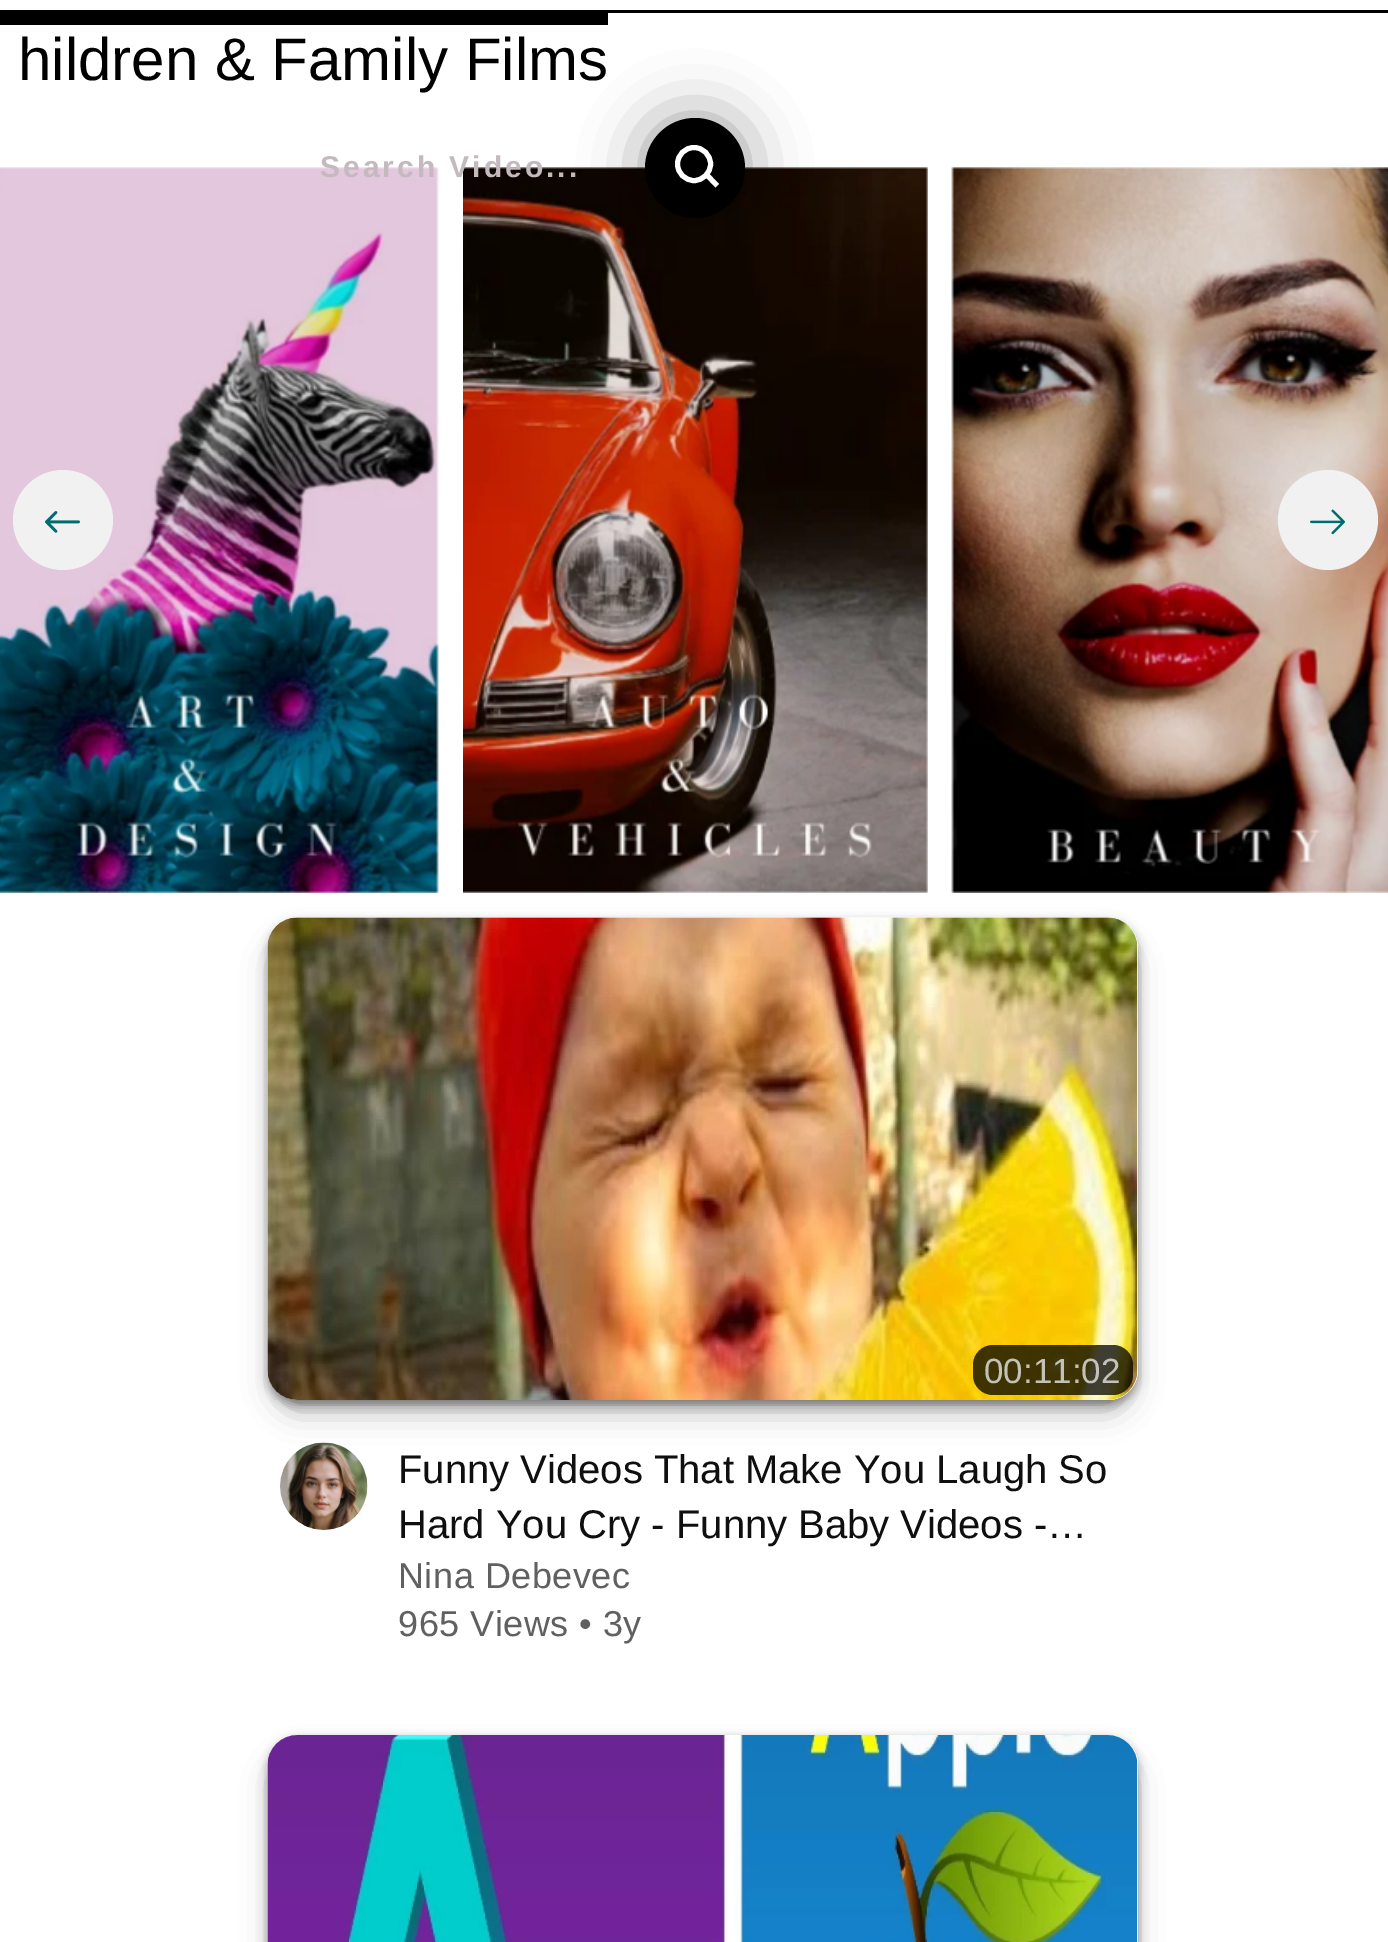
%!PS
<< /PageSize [1388 1942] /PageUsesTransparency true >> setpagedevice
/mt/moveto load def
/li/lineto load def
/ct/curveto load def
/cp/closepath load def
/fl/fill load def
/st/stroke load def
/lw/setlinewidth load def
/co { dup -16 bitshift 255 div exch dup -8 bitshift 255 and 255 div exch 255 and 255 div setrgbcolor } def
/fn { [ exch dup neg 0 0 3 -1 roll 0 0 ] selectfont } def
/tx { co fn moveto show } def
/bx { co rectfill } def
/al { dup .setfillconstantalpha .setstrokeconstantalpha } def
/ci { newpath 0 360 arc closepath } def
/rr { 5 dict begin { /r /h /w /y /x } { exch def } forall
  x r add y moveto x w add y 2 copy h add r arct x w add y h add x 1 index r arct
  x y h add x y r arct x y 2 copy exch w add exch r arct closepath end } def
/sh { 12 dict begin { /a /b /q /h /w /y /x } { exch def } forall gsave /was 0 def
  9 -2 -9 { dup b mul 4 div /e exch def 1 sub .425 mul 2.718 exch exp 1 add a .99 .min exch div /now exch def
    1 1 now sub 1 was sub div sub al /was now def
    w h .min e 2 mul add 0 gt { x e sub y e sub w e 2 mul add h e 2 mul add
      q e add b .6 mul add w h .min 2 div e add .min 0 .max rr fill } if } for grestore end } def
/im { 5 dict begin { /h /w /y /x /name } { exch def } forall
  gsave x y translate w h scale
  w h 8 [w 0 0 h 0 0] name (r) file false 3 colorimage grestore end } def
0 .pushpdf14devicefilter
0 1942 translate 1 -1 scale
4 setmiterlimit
0 0 1388 1942 16#FFFFFF bx
0 10 1388 3 16#000000 bx
0 13 608 12 16#000000 bx
(media/2.raw) 463 167 465 726 im
645 118 100 100 50 31 .4 sh
695 168 50 ci fl
16#FFFFFF co
707 171.5 mt 719 184 li 715.5 187.5 li 703.5 175 li cp fl
5 lw
694 164 16.5 ci st
(media/1.raw) 0 167 439 726 im
(media/3.raw) 951 167 437 726 im
16#F1F1F1 co
63 520 50 ci fl
(media/4.raw) 45 511 35 22 im
1328 520 50 ci fl
(media/5.raw) 1310 509 35 26 im
(media/8.raw) 280 1442 88 88 im
16#000000 co
275 943 855 467 23 16 .3 sh
268 923 870 482 30 5 .4 sh
0.2 al
268 1362 mt 268 1370 li 268 1387 281 1400 298 1400 ct 1108 1400 li 1125 1400 1138 1387 1138 1370 ct 1138 1362 li 1138 1379 1124 1392 1108 1392 ct 298 1392 li 281 1392 268 1379 268 1362 ct cp fl
1 al
(media/6.raw) 267 917 871 483 im
16#FFFFFF co
268 918 870 482 30 rr fl
(media/7.raw) 267 917 871 483 im
0.75 al
16#000000 co
973 1345 160 50 20 rr fl
1 al
275 1760 855 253 23 16 .3 sh
268 1740 870 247 30 5 .4 sh
(media/9.raw) 267 1735 871 207 im
16#FFFFFF co
268 1735 870 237 30 rr fl
(media/10.raw) 267 1735 871 207 im
(hildren & Family Films) 18 80 /LiberationSans-Regular 60 16#000000 tx
/LiberationSans-Bold 30 fn
16#C3B9BE co
320 177 mt 3 0 (Search Video...) ashow
(00:11:02) 984 1383 /LiberationSans-Regular 35 16#C4C2B8 tx
(Funny Videos That Make You Laugh So) 398 1483 /LiberationSans-Regular 40 16#0F0F0F tx
(Hard You Cry - Funny Baby Videos -…) 398 1538 /LiberationSans-Regular 40 16#0F0F0F tx
/LiberationSans-Regular 36 fn
16#606060 co
398 1588 mt .5 0 (Nina Debevec) ashow
398 1636 mt .5 0 (965 Views • 3y) ashow
.poppdf14devicefilter showpage
